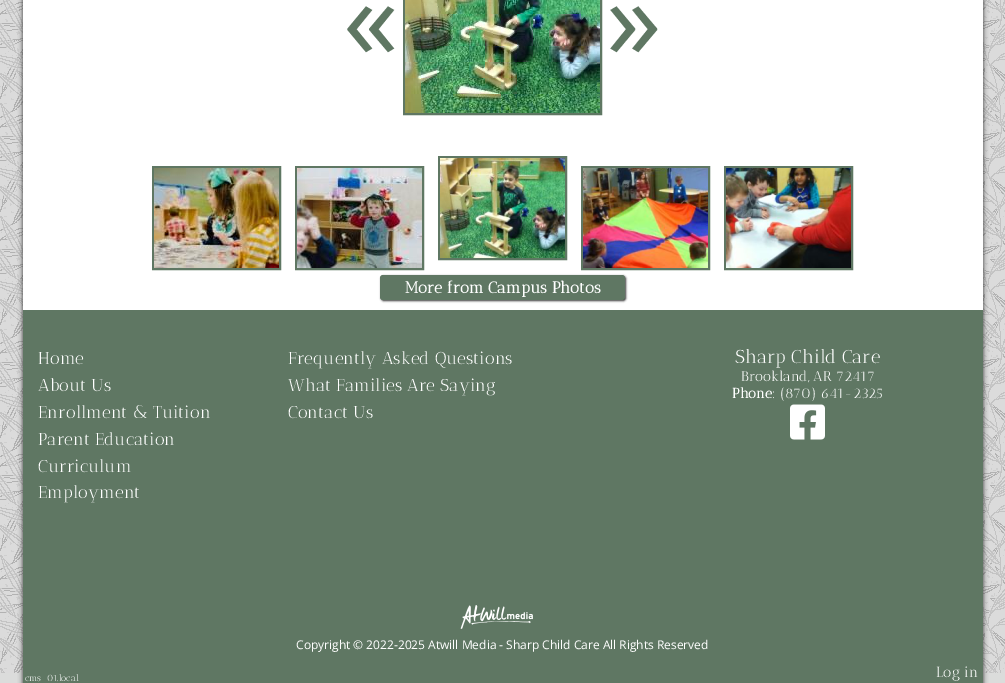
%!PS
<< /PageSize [1005 683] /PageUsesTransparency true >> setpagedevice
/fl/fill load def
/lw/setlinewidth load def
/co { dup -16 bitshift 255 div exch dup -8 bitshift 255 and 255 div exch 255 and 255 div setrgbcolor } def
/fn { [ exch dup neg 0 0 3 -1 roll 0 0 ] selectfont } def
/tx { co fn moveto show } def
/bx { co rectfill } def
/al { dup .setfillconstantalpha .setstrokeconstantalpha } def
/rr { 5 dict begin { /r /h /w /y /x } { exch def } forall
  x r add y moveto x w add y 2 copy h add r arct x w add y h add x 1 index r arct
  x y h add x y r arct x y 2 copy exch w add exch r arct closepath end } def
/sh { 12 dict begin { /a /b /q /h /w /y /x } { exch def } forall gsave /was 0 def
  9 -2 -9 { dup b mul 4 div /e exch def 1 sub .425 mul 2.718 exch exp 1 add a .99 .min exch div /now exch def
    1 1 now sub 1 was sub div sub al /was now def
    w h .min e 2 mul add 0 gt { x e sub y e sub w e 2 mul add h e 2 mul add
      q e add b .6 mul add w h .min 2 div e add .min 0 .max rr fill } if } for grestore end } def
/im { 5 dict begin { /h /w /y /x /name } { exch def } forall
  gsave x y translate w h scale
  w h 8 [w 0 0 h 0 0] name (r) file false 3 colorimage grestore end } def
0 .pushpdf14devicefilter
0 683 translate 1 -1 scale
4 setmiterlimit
0 0 1005 683 16#DBDCDB bx
(media/1.raw) 0 0 1005 673 im
16#333333 co
23 -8 960 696 0 2.5 1 sh
23 0 960 310 16#FFFFFF bx
16#5F7763 co
2 lw
404 -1 197 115 rectstroke
(media/2.raw) 405 0 195 113 im
153 167 127 102 rectstroke
(media/3.raw) 154 168 125 100 im
296 167 127 102 rectstroke
(media/4.raw) 297 168 125 100 im
439 157 127 102 rectstroke
(media/5.raw) 440 158 125 100 im
582 167 127 102 rectstroke
(media/6.raw) 583 168 125 100 im
725 167 127 102 rectstroke
(media/7.raw) 726 168 125 100 im
16#333333 co
381 276 245 25 3 1 1 sh
16#5F7763 co
380 275 245 25 3 rr fl
23 310 960 373 16#5F7763 bx
(media/8.raw) 790 404 35 36 im
(media/9.raw) 460 605 73 24 im
(«) 343 59 /OpenSans-Regular 112 16#5F7763 tx
(») 606 59 /OpenSans-Regular 112 16#5F7763 tx
(More from Campus Photos) 405 293 /AnticDidone-Bold 16 16#FFFFFF tx
(Home) 38 364 /AnticDidone-Regular 17.25 16#FFFFFF tx
(About Us) 38 391 /AnticDidone-Regular 17.25 16#FFFFFF tx
(Enrollment & Tuition) 38 418 /AnticDidone-Regular 17.25 16#FFFFFF tx
(Parent Education) 38 445 /AnticDidone-Regular 17.25 16#FFFFFF tx
(Curriculum) 38 472 /AnticDidone-Regular 17.25 16#FFFFFF tx
(Employment) 38 498 /AnticDidone-Regular 17.25 16#FFFFFF tx
(Frequently Asked Questions) 288 364 /AnticDidone-Regular 17.25 16#FFFFFF tx
(What Families Are Saying) 288 391 /AnticDidone-Regular 17.25 16#FFFFFF tx
(Contact Us) 288 418 /AnticDidone-Regular 17.25 16#FFFFFF tx
(Sharp Child Care) 735 363 /AnticDidone-Regular 18.75 16#FFFFFF tx
(Brookland, AR 72417) 741 381 /AnticDidone-Regular 14 16#FFFFFF tx
(Phone) 732 398 /AnticDidone-Bold 14 16#FFFFFF tx
(: \(870\) 641-2325) 772 398 /AnticDidone-Regular 14 16#FFFFFF tx
(Copyright © 2022-2025 Atwill Media - Sharp Child Care All Rights Reserved) 296 649 /OpenSans-Regular 12 16#FFFFFF tx
(cms-01.local) 25 681 /AnticDidone-Regular 9 16#FFFFFF tx
(Log in) 936 677 /AnticDidone-Regular 14.5 16#FFFFFF tx
.poppdf14devicefilter showpage
